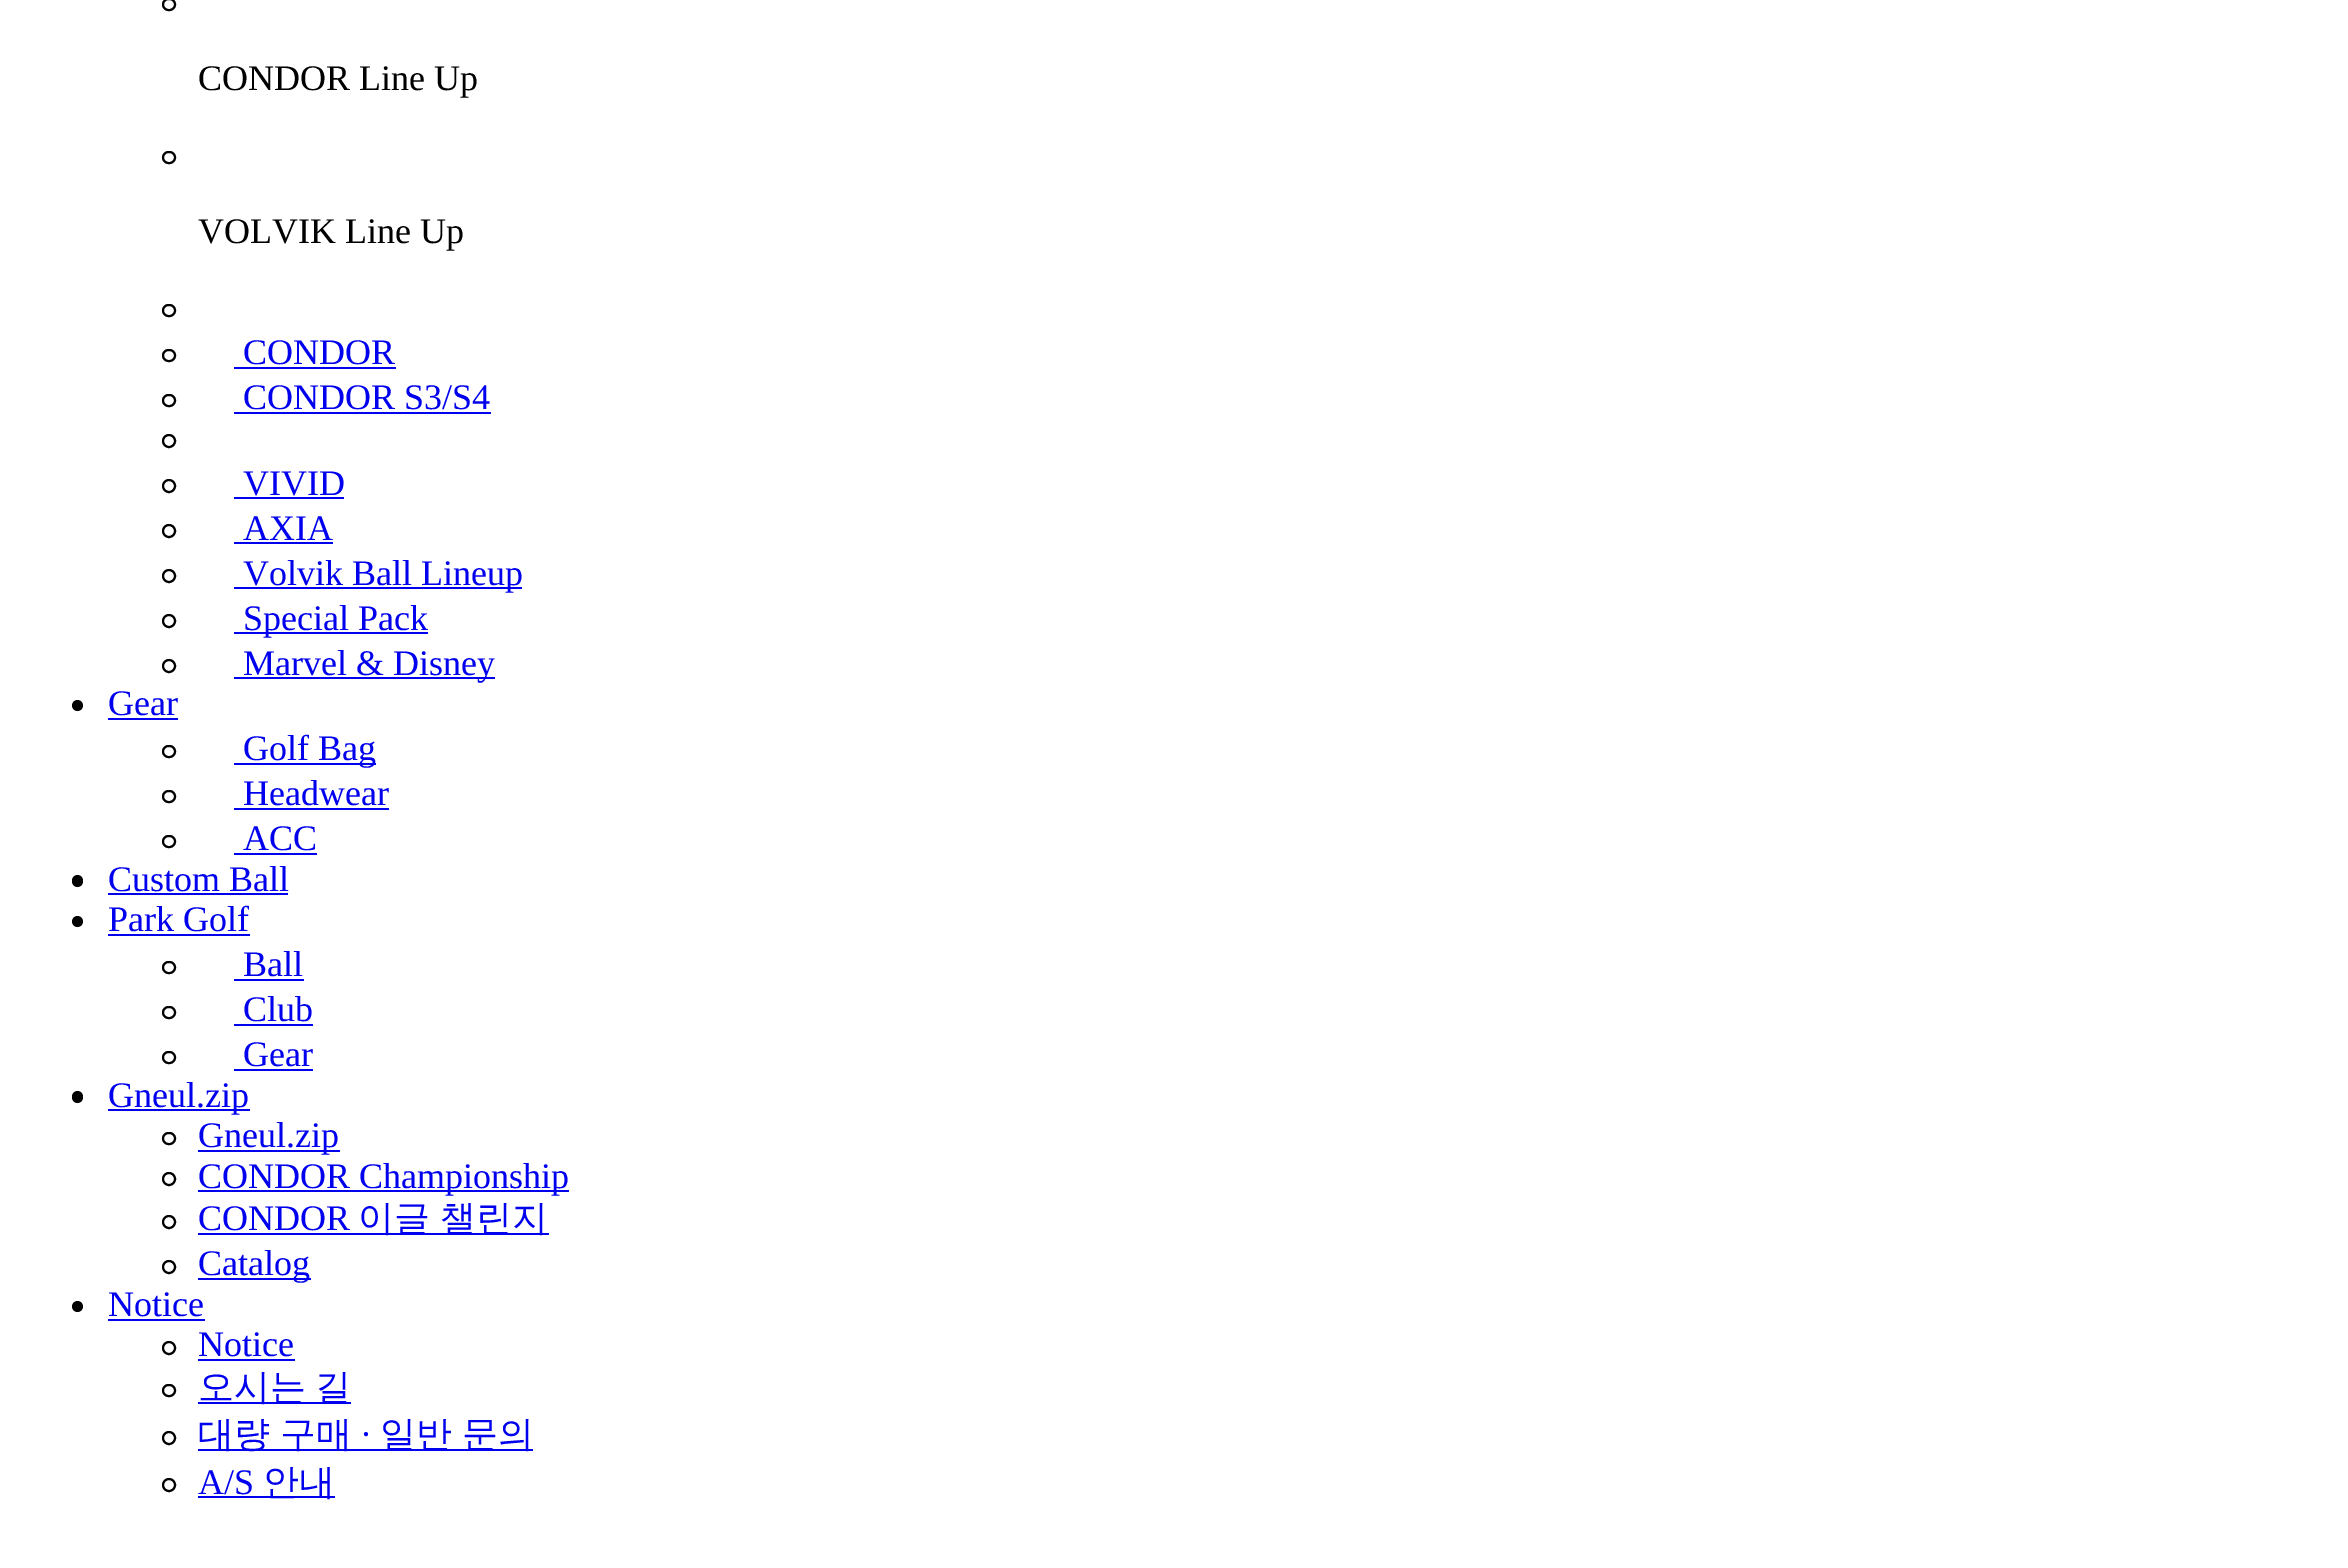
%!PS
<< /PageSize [2348 1568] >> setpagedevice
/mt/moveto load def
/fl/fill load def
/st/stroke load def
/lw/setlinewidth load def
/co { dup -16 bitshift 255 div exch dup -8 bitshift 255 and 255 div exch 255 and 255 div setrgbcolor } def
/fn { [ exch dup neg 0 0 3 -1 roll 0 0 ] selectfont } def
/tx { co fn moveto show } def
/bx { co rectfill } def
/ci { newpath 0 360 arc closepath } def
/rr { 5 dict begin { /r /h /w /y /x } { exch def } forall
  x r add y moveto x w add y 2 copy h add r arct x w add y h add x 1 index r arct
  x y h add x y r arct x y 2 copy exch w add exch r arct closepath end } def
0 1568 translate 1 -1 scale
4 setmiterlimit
0 0 2348 1568 16#FFFFFF bx
16#000000 co
2 lw
163 -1 12 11 5.5 rr st
163 152 12 11 5.5 rr st
163 305 12 11 5.5 rr st
163 350 12 11 5.5 rr st
234 367 162 2 16#0000EE bx
16#000000 co
163 395 12 11 5.5 rr st
234 412 257 2 16#0000EE bx
16#000000 co
169 441 6 ci st
169 486 6 ci st
234 497 110 2 16#0000EE bx
16#000000 co
169 531 6 ci st
234 542 99 2 16#0000EE bx
16#000000 co
169 576 6 ci st
234 587 288 2 16#0000EE bx
16#000000 co
169 621 6 ci st
234 632 194 2 16#0000EE bx
16#000000 co
169 666 6 ci st
234 677 261 2 16#0000EE bx
16#000000 co
77.5 705.5 5.5 ci fl
108 718 70 2 16#0000EE bx
16#000000 co
163 746 12 11 5.5 rr st
234 763 142 2 16#0000EE bx
16#000000 co
163 791 12 11 5.5 rr st
234 808 155 2 16#0000EE bx
16#000000 co
163 836 12 11 5.5 rr st
234 853 83 2 16#0000EE bx
16#000000 co
72 875 11 12 5.5 rr fl
108 893 180 2 16#0000EE bx
16#000000 co
77.5 921.5 5.5 ci fl
108 934 142 2 16#0000EE bx
16#000000 co
163 962 12 11 5.5 rr st
234 979 70 2 16#0000EE bx
16#000000 co
163 1007 12 11 5.5 rr st
234 1024 79 2 16#0000EE bx
16#000000 co
163 1052 12 11 5.5 rr st
234 1069 79 2 16#0000EE bx
16#000000 co
72 1091 11 12 5.5 rr fl
108 1109 142 2 16#0000EE bx
16#000000 co
163 1133 12 11 5.5 rr st
198 1150 142 2 16#0000EE bx
16#000000 co
169 1179 6 ci st
198 1190 371 2 16#0000EE bx
16#000000 co
169 1222 6 ci st
198 1233 351 2 16#0000EE bx
16#000000 co
169 1267 6 ci st
198 1278 113 2 16#0000EE bx
16#000000 co
77.5 1306.5 5.5 ci fl
108 1319 97 2 16#0000EE bx
16#000000 co
169 1348 6 ci st
198 1359 97 2 16#0000EE bx
16#000000 co
163 1385 12 11 5.5 rr st
198 1402 153 2 16#0000EE bx
16#000000 co
169 1438 6 ci st
198 1449 335 2 16#0000EE bx
16#000000 co
169 1485 6 ci st
198 1496 137 2 16#0000EE bx
(CONDOR Line Up) 198 90 /LiberationSerif-Regular 36 16#000000 tx
(VOLVIK Line Up) 198 243 /LiberationSerif-Regular 36 16#000000 tx
(CONDOR) 243 364 /LiberationSerif-Regular 36 16#0000EE tx
(CONDOR S3/S4) 243 409 /LiberationSerif-Regular 36 16#0000EE tx
(VIVID) 243 495 /LiberationSerif-Regular 36 16#0000EE tx
(AXIA) 243 540 /LiberationSerif-Regular 36 16#0000EE tx
(Volvik Ball Lineup) 243 585 /LiberationSerif-Regular 36 16#0000EE tx
(Special Pack) 243 630 /LiberationSerif-Regular 36 16#0000EE tx
(Marvel & Disney) 243 675 /LiberationSerif-Regular 36 16#0000EE tx
(Gear) 108 715 /LiberationSerif-Regular 36 16#0000EE tx
(Golf Bag) 243 760 /LiberationSerif-Regular 36 16#0000EE tx
(Headwear) 243 805 /LiberationSerif-Regular 36 16#0000EE tx
(ACC) 243 850 /LiberationSerif-Regular 36 16#0000EE tx
(Custom Ball) 108 891 /LiberationSerif-Regular 36 16#0000EE tx
(Park Golf) 108 931 /LiberationSerif-Regular 36 16#0000EE tx
(Ball) 243 976 /LiberationSerif-Regular 36 16#0000EE tx
(Club) 243 1021 /LiberationSerif-Regular 36 16#0000EE tx
(Gear) 243 1066 /LiberationSerif-Regular 36 16#0000EE tx
(Gneul.zip) 108 1107 /LiberationSerif-Regular 36 16#0000EE tx
(Gneul.zip) 198 1147 /LiberationSerif-Regular 36 16#0000EE tx
(CONDOR Championship) 198 1188 /LiberationSerif-Regular 36 16#0000EE tx
(CONDOR) 198 1230 /LiberationSerif-Regular 36 16#0000EE tx
/WenQuanYiZenHei-Medium 36 fn
358 1230 mt -1 0 32 (이글 챌린지) widthshow
(Catalog) 198 1275 /LiberationSerif-Regular 36 16#0000EE tx
(Notice) 108 1316 /LiberationSerif-Regular 36 16#0000EE tx
(Notice) 198 1356 /LiberationSerif-Regular 36 16#0000EE tx
/WenQuanYiZenHei-Medium 36 fn
198 1399 mt -2 0 32 (오시는 길) widthshow
198 1446 mt -1 0 32 (대량 구매) widthshow
(·) 360 1446 /LiberationSerif-Regular 36 16#0000EE tx
/WenQuanYiZenHei-Medium 36 fn
380 1446 mt -1 0 32 (일반 문의) widthshow
(A/S) 198 1494 /LiberationSerif-Regular 36 16#0000EE tx
(안내) 263 1494 /WenQuanYiZenHei-Medium 36 16#0000EE tx
showpage
